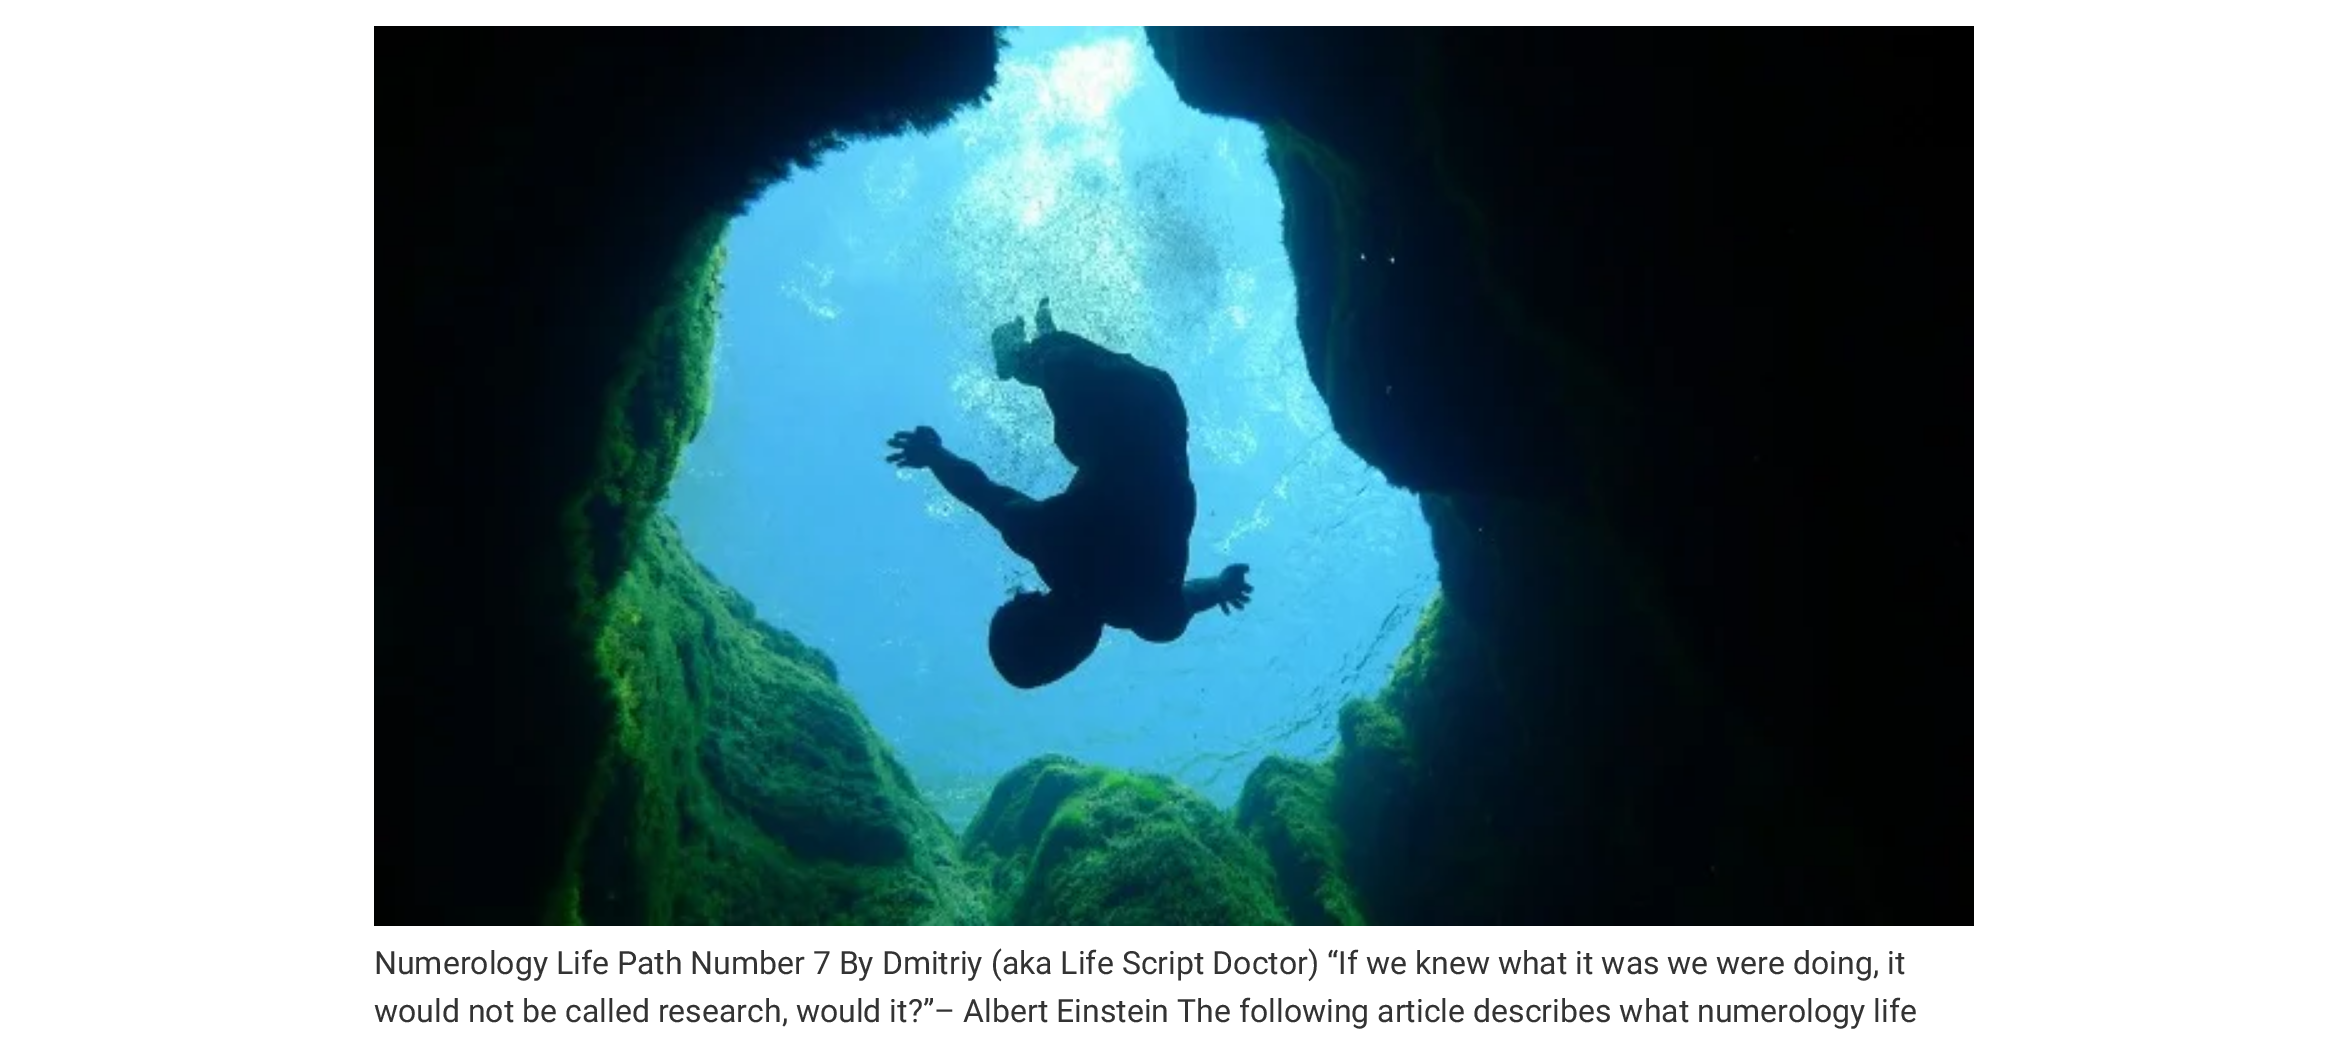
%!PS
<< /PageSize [2347 1046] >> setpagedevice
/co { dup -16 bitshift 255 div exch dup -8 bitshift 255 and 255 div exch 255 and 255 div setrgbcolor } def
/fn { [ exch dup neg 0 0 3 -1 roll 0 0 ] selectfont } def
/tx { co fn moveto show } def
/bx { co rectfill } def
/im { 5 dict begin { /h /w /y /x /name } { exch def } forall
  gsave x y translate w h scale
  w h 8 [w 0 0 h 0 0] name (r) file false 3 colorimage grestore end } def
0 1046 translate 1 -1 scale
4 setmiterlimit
0 0 2347 1046 16#FFFFFF bx
(media/1.raw) 374 26 1600 900 im
(Numerology Life Path Number 7 By Dmitriy \(aka Life Script Doctor\) “If we knew what it was we were doing, it) 374 974 /Roboto-Regular 32 16#333333 tx
(would not be called research, would it?”– Albert Einstein The following article describes what numerology life) 374 1022 /Roboto-Regular 32 16#333333 tx
showpage
